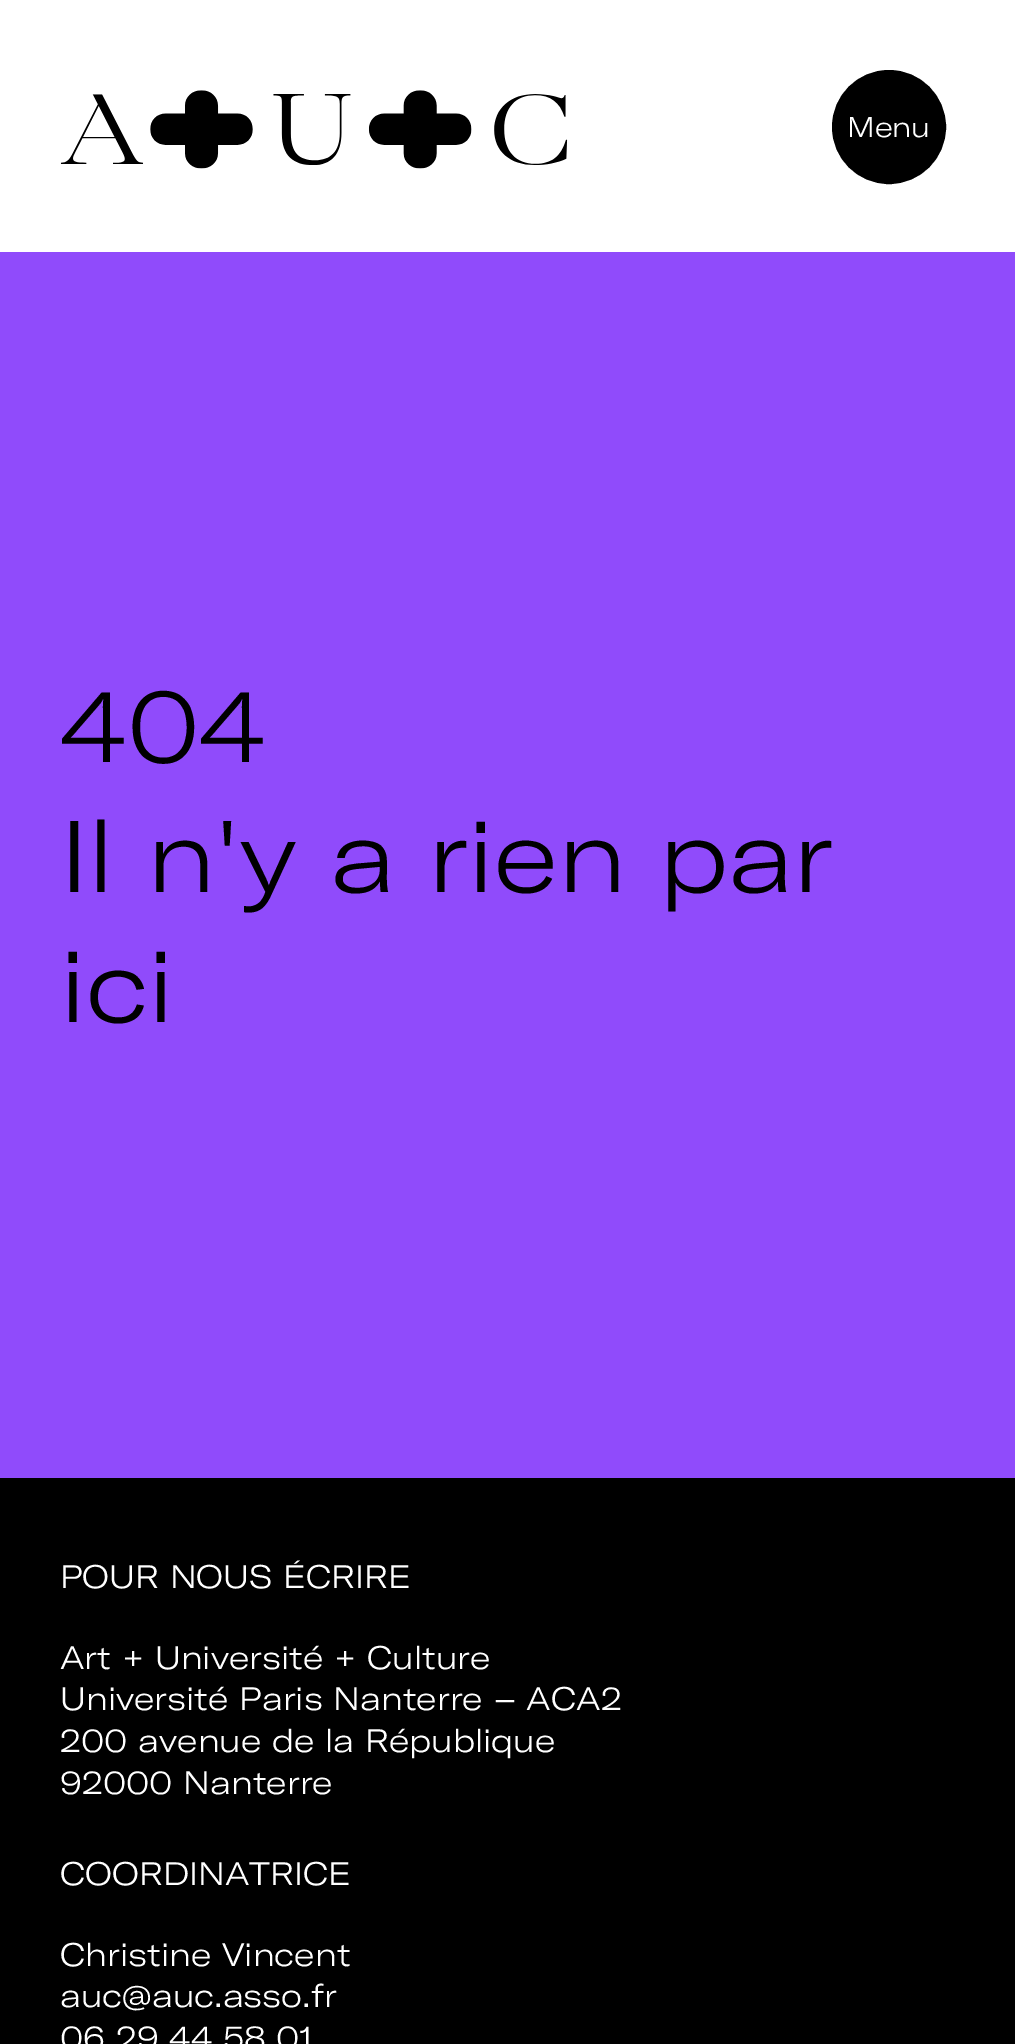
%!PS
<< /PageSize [1015 2044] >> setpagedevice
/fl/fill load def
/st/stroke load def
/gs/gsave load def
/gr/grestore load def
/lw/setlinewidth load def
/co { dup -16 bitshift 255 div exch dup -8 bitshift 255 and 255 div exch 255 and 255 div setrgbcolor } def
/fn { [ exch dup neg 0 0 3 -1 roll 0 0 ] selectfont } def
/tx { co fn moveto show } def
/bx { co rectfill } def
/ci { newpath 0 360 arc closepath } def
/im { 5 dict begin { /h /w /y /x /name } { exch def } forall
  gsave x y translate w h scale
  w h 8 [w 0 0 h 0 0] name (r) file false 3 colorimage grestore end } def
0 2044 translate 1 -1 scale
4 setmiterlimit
0 0 1015 2044 16#904BFB bx
0 0 1015 252 16#FFFFFF bx
(media/1.raw) 60 90 508 79 im
16#000000 co
889 127 56 ci gs fl gr
2 lw
st
0 1478 1015 566 16#000000 bx
(Menu) 847 137 /GTAmerica-Light 28 16#FFFFFF tx
(404) 60 762 /GTAmerica-Light 100 16#000000 tx
(Il n'y a rien par) 60 892 /GTAmerica-Light 100 16#000000 tx
(ici) 60 1022 /GTAmerica-Light 100 16#000000 tx
(POUR NOUS ÉCRIRE) 60 1588 /GTAmerica-Light 32 16#FFFFFF tx
(Art + Université + Culture) 60 1669 /GTAmerica-Light 32 16#FFFFFF tx
(Université Paris Nanterre – ACA2) 60 1710 /GTAmerica-Light 32 16#FFFFFF tx
(200 avenue de la République) 60 1752 /GTAmerica-Light 32 16#FFFFFF tx
(92000 Nanterre) 60 1794 /GTAmerica-Light 32 16#FFFFFF tx
(COORDINATRICE) 60 1885 /GTAmerica-Light 32 16#FFFFFF tx
(Christine Vincent) 60 1966 /GTAmerica-Light 32 16#FFFFFF tx
(auc@auc.asso.fr) 60 2007 /GTAmerica-Light 32 16#FFFFFF tx
(06 29 44 58 01) 60 2049 /GTAmerica-Light 32 16#FFFFFF tx
showpage
